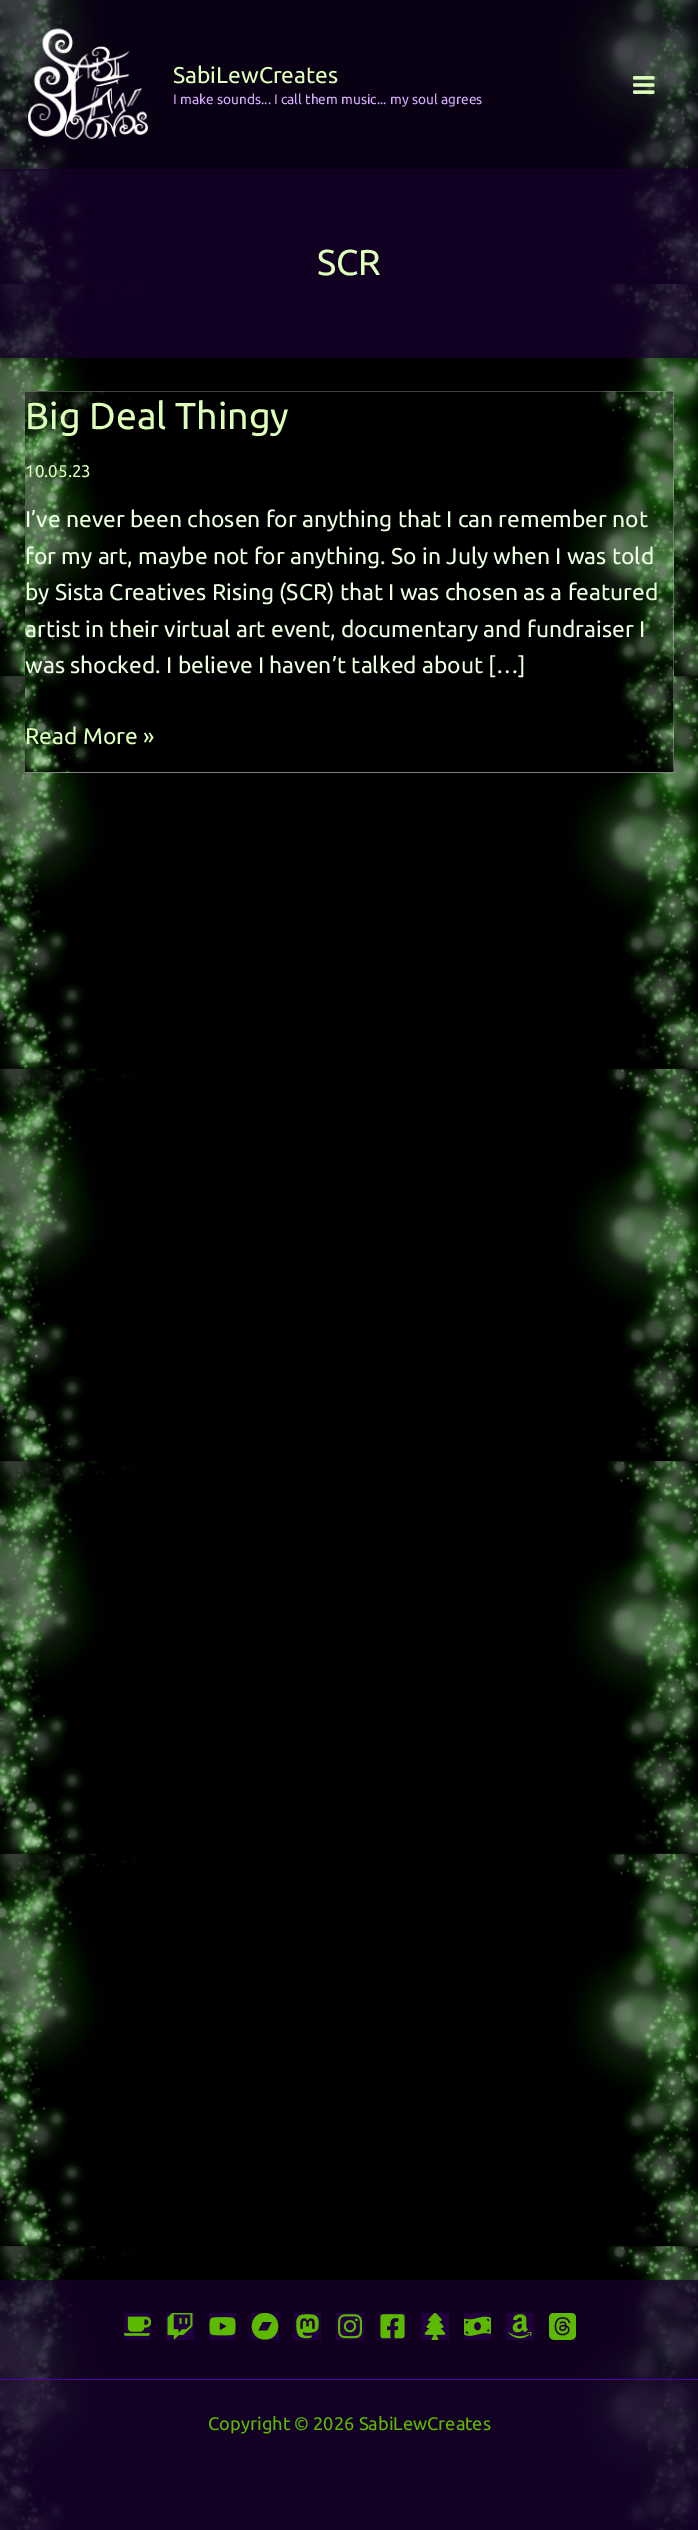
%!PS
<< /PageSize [698 2530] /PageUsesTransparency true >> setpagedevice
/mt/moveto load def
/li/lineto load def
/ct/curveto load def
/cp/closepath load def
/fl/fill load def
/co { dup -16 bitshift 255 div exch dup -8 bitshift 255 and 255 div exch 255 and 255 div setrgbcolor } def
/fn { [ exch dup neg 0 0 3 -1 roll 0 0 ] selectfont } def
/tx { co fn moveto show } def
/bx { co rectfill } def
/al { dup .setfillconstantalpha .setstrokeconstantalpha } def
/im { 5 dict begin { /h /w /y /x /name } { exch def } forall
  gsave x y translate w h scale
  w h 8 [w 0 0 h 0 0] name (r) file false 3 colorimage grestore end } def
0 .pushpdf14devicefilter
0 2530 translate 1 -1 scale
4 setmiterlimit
0 0 698 2530 16#FFFFFF bx
(media/1.raw) 0 0 698 2530 im
0.73 al
0 169 698 189 16#18002E bx
0.42 al
0 0 698 171 16#18002E bx
1 al
(media/2.raw) 28 28 121 112 im
(media/3.raw) 633 76 22 18 im
25 391 649 382 16#FFFFFF bx
(media/4.raw) 25 391 649 382 im
0.24 al
0 2280 698 250 16#18002E bx
0.64 al
0 2280 698 99 16#18002E bx
1 al
124 2313 27 27 16#21003F bx
(media/5.raw) 124 2316 27 20 im
166 2313 28 27 16#21003F bx
(media/6.raw) 167 2313 26 27 im
209 2313 27 27 16#21003F bx
(media/7.raw) 209 2317 27 19 im
251 2313 28 27 16#21003F bx
16#5DB900 co
265 2313 mt 247.5 2313 247.5 2339.5 265 2339.5 ct 282.5 2339.5 282.5 2313 265 2313 ct cp 267.5 2330.5 mt 258 2330.5 li 262.5 2322 li 272 2322 li cp fl
294 2313 27 27 16#21003F bx
(media/8.raw) 296 2314 23 25 im
336 2313 28 27 16#21003F bx
(media/9.raw) 337 2314 26 25 im
379 2313 27 27 16#21003F bx
(media/10.raw) 380 2314 25 25 im
421 2313 28 27 16#21003F bx
(media/11.raw) 424 2313 22 27 im
464 2313 27 27 16#21003F bx
(media/12.raw) 464 2316 27 20 im
506 2313 28 27 16#21003F bx
(media/13.raw) 508 2314 24 25 im
549 2313 27 27 16#21003F bx
(media/14.raw) 549 2313 27 27 im
0.73 al
0 2380 698 150 16#18002E bx
1 al
0 2379 698 1 16#5500A5 bx
(SabiLewCreates) 173 83 /Ubuntu-Regular 22.8 16#DDFFBA tx
(I make sounds... I call them music... my soul agrees) 173 104 /Ubuntu-Regular 13.7 16#D7ADFF tx
(SCR) 317 275 /Ubuntu-Regular 36 16#DDFFBA tx
(Big Deal Thingy) 25 429 /Ubuntu-Regular 37.5 16#DDFFBA tx
(10.05.23) 25 477 /Ubuntu-Regular 17 16#DDFFBA tx
(I’ve never been chosen for anything that I can remember not) 25 527 /Ubuntu-Regular 22.8 16#ECFFE1 tx
(for my art, maybe not for anything. So in July when I was told) 25 564 /Ubuntu-Regular 22.8 16#ECFFE1 tx
(by Sista Creatives Rising \(SCR\) that I was chosen as a featured) 25 600 /Ubuntu-Regular 22.8 16#ECFFE1 tx
(artist in their virtual art event, documentary and fundraiser I) 25 637 /Ubuntu-Regular 22.8 16#ECFFE1 tx
(was shocked. I believe I haven’t talked about […]) 25 673 /Ubuntu-Regular 22.8 16#ECFFE1 tx
(Read More ») 25 744 /Ubuntu-Regular 22.8 16#DDFFBA tx
(Copyright © 2026 SabiLewCreates) 208 2430 /Ubuntu-Regular 18.25 16#5DB900 tx
.poppdf14devicefilter showpage
